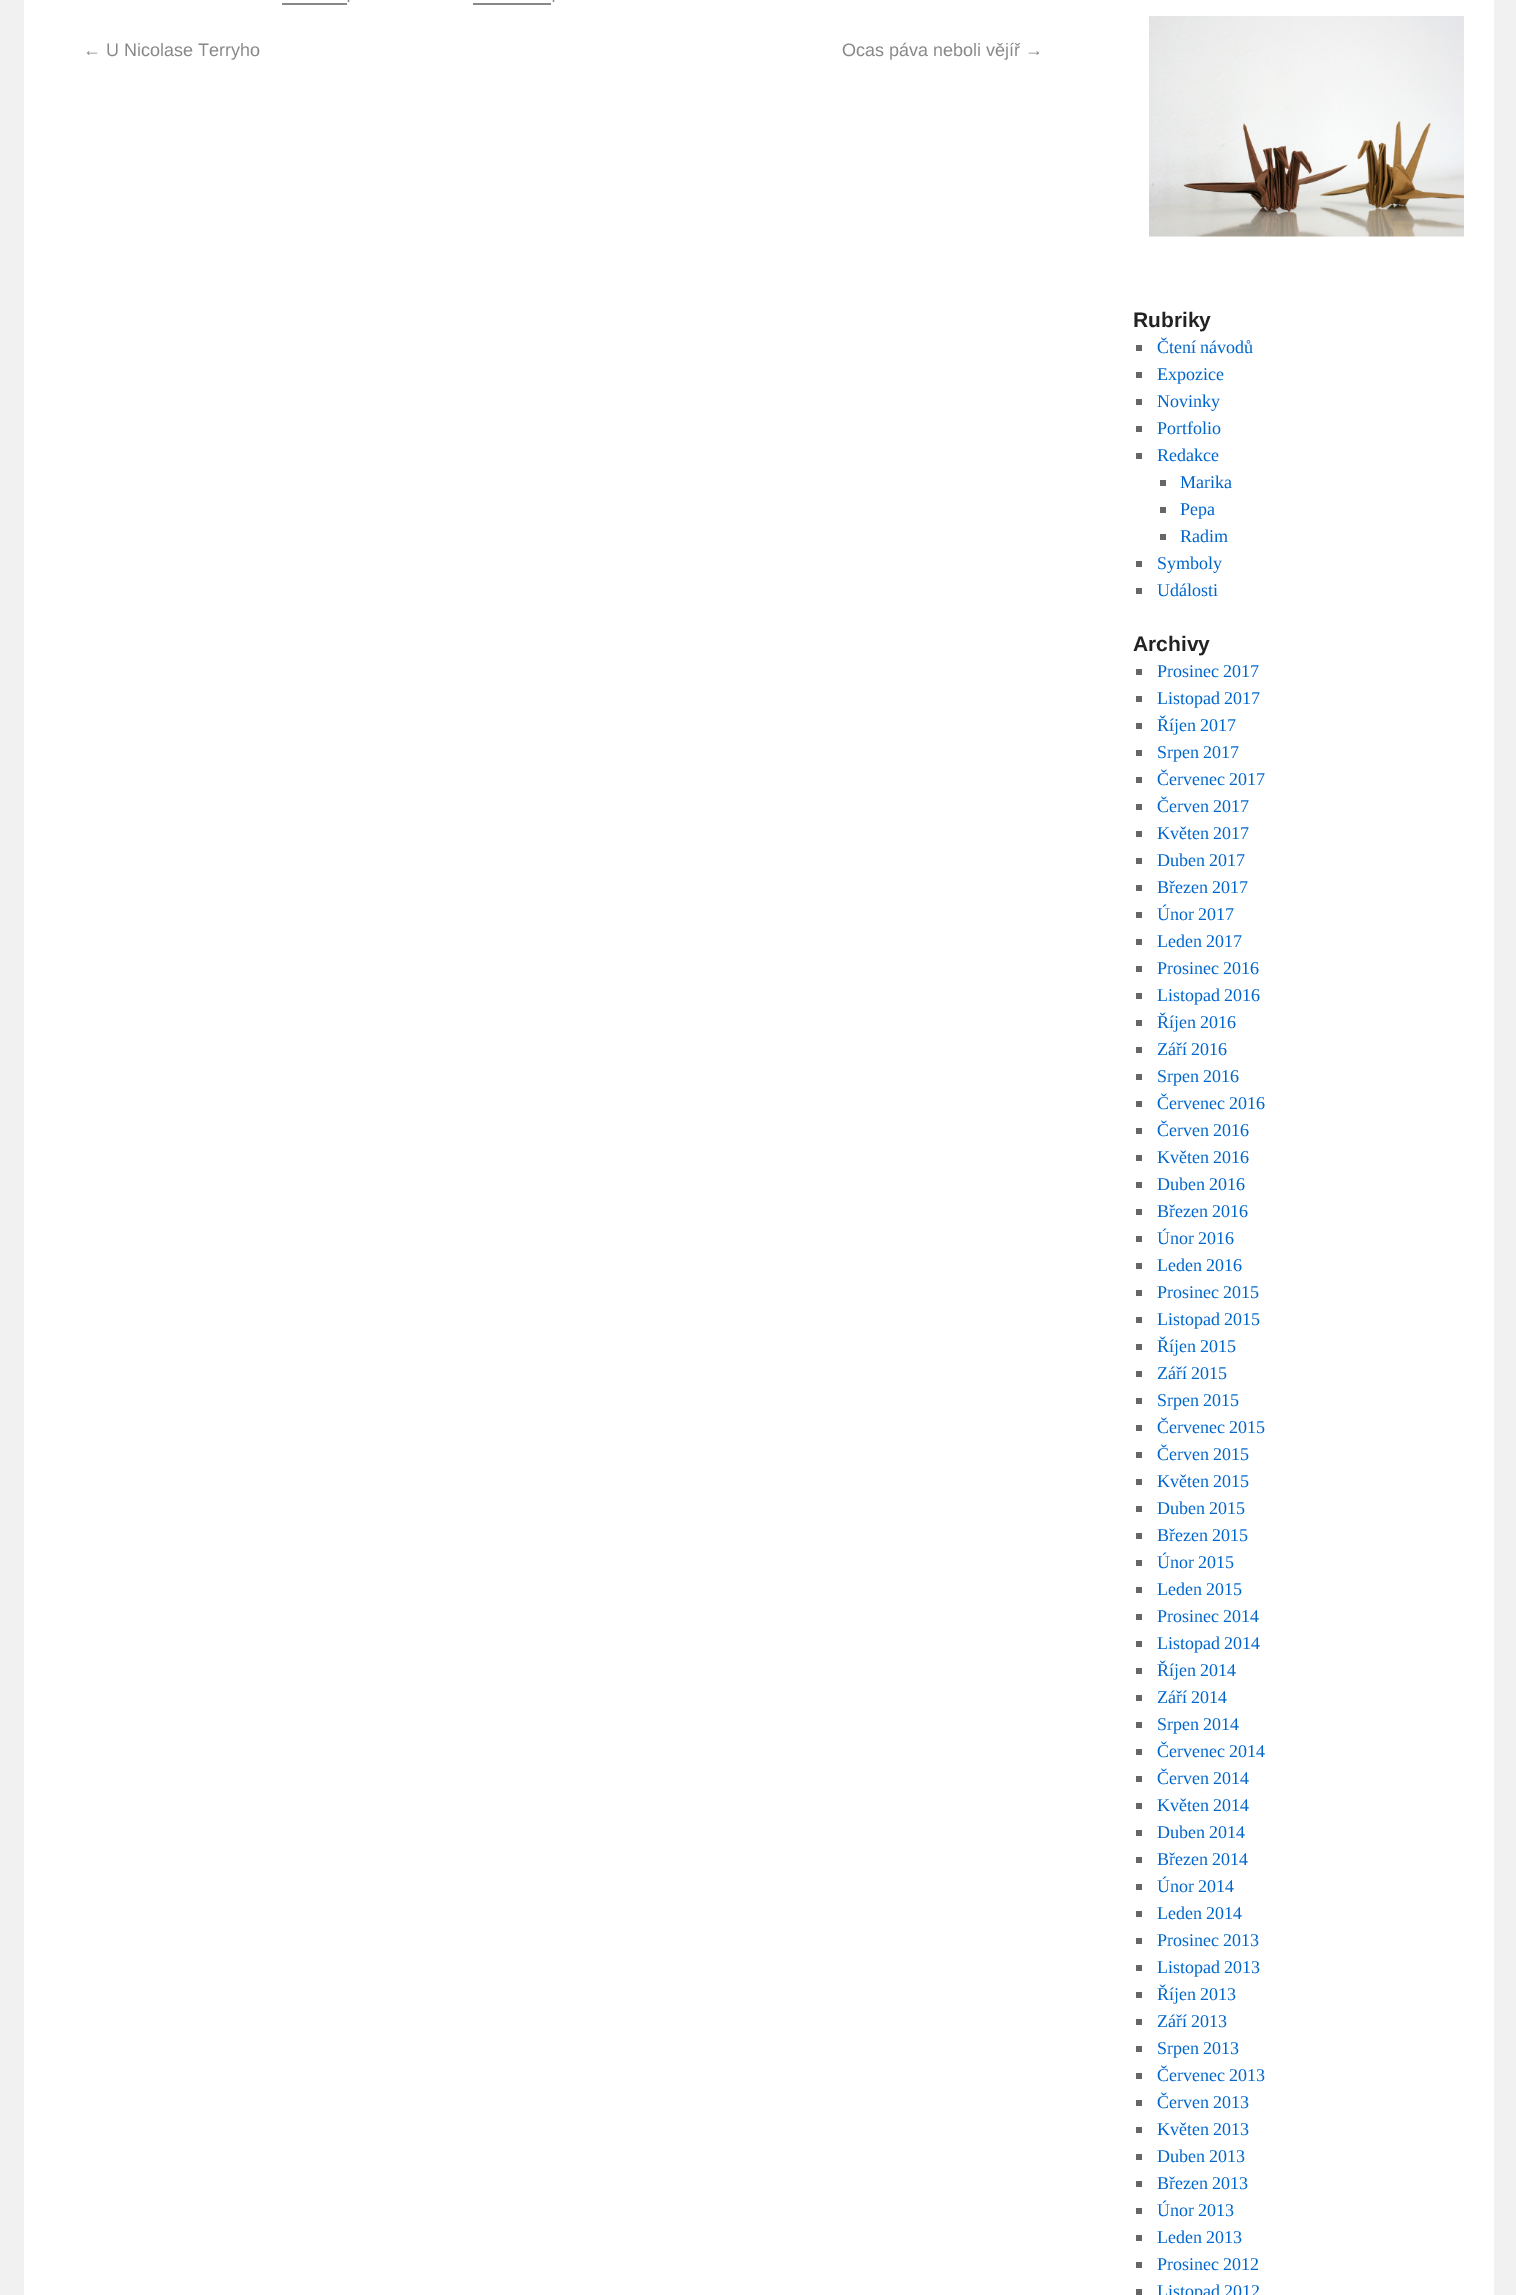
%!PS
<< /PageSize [1516 2295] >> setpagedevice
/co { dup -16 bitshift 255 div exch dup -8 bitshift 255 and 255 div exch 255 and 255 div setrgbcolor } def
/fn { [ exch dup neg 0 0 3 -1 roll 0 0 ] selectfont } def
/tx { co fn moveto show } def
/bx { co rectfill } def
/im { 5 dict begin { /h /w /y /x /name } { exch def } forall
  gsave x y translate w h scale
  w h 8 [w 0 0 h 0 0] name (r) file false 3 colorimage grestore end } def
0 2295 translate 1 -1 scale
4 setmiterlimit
0 0 1516 2295 16#F1F1F1 bx
24 0 1470 2295 16#FFFFFF bx
282 3 65 2 16#888888 bx
473 3 78 2 16#888888 bx
(media/1.raw) 1149 16 315 221 im
1136 345 6 6 16#666666 bx
1136 372 6 6 16#666666 bx
1136 399 6 6 16#666666 bx
1136 426 6 6 16#666666 bx
1136 453 6 6 16#666666 bx
1160 480 6 6 16#666666 bx
1160 507 6 6 16#666666 bx
1160 534 6 6 16#666666 bx
1136 561 6 6 16#666666 bx
1136 588 6 6 16#666666 bx
1136 669 6 6 16#666666 bx
1136 696 6 6 16#666666 bx
1136 723 6 6 16#666666 bx
1136 750 6 6 16#666666 bx
1136 777 6 6 16#666666 bx
1136 804 6 6 16#666666 bx
1136 831 6 6 16#666666 bx
1136 858 6 6 16#666666 bx
1136 885 6 6 16#666666 bx
1136 912 6 6 16#666666 bx
1136 939 6 6 16#666666 bx
1136 966 6 6 16#666666 bx
1136 993 6 6 16#666666 bx
1136 1020 6 6 16#666666 bx
1136 1047 6 6 16#666666 bx
1136 1074 6 6 16#666666 bx
1136 1101 6 6 16#666666 bx
1136 1128 6 6 16#666666 bx
1136 1155 6 6 16#666666 bx
1136 1182 6 6 16#666666 bx
1136 1209 6 6 16#666666 bx
1136 1236 6 6 16#666666 bx
1136 1263 6 6 16#666666 bx
1136 1290 6 6 16#666666 bx
1136 1317 6 6 16#666666 bx
1136 1344 6 6 16#666666 bx
1136 1371 6 6 16#666666 bx
1136 1398 6 6 16#666666 bx
1136 1425 6 6 16#666666 bx
1136 1452 6 6 16#666666 bx
1136 1479 6 6 16#666666 bx
1136 1506 6 6 16#666666 bx
1136 1533 6 6 16#666666 bx
1136 1560 6 6 16#666666 bx
1136 1587 6 6 16#666666 bx
1136 1614 6 6 16#666666 bx
1136 1641 6 6 16#666666 bx
1136 1668 6 6 16#666666 bx
1136 1695 6 6 16#666666 bx
1136 1722 6 6 16#666666 bx
1136 1749 6 6 16#666666 bx
1136 1776 6 6 16#666666 bx
1136 1803 6 6 16#666666 bx
1136 1830 6 6 16#666666 bx
1136 1857 6 6 16#666666 bx
1136 1884 6 6 16#666666 bx
1136 1911 6 6 16#666666 bx
1136 1938 6 6 16#666666 bx
1136 1965 6 6 16#666666 bx
1136 1992 6 6 16#666666 bx
1136 2019 6 6 16#666666 bx
1136 2046 6 6 16#666666 bx
1136 2073 6 6 16#666666 bx
1136 2100 6 6 16#666666 bx
1136 2127 6 6 16#666666 bx
1136 2154 6 6 16#666666 bx
1136 2181 6 6 16#666666 bx
1136 2208 6 6 16#666666 bx
1136 2235 6 6 16#666666 bx
1136 2262 6 6 16#666666 bx
1136 2289 6 6 16#666666 bx
(.) 346 2 /LiberationSans-Regular 18 16#888888 tx
(.) 551 2 /LiberationSans-Regular 18 16#888888 tx
(← U Nicolase Terryho) 83 56 /LiberationSans-Regular 18 16#888888 tx
(Ocas páva neboli vějíř →) 842 56 /LiberationSans-Regular 18 16#888888 tx
(Rubriky) 1133 327 /LiberationSans-Bold 21 16#222222 tx
(Čtení návodů) 1157 353 /LiberationSerif-Regular 18 16#0066CC tx
(Expozice) 1157 380 /LiberationSerif-Regular 18 16#0066CC tx
(Novinky) 1157 407 /LiberationSerif-Regular 18 16#0066CC tx
(Portfolio) 1157 434 /LiberationSerif-Regular 18 16#0066CC tx
(Redakce) 1157 461 /LiberationSerif-Regular 18 16#0066CC tx
(Marika) 1180 488 /LiberationSerif-Regular 18 16#0066CC tx
(Pepa) 1180 515 /LiberationSerif-Regular 18 16#0066CC tx
(Radim) 1180 542 /LiberationSerif-Regular 18 16#0066CC tx
(Symboly) 1157 569 /LiberationSerif-Regular 18 16#0066CC tx
(Události) 1157 596 /LiberationSerif-Regular 18 16#0066CC tx
(Archivy) 1133 651 /LiberationSans-Bold 21 16#222222 tx
(Prosinec 2017) 1157 677 /LiberationSerif-Regular 18 16#0066CC tx
(Listopad 2017) 1157 704 /LiberationSerif-Regular 18 16#0066CC tx
(Říjen 2017) 1157 731 /LiberationSerif-Regular 18 16#0066CC tx
(Srpen 2017) 1157 758 /LiberationSerif-Regular 18 16#0066CC tx
(Červenec 2017) 1157 785 /LiberationSerif-Regular 18 16#0066CC tx
(Červen 2017) 1157 812 /LiberationSerif-Regular 18 16#0066CC tx
(Květen 2017) 1157 839 /LiberationSerif-Regular 18 16#0066CC tx
(Duben 2017) 1157 866 /LiberationSerif-Regular 18 16#0066CC tx
(Březen 2017) 1157 893 /LiberationSerif-Regular 18 16#0066CC tx
(Únor 2017) 1157 920 /LiberationSerif-Regular 18 16#0066CC tx
(Leden 2017) 1157 947 /LiberationSerif-Regular 18 16#0066CC tx
(Prosinec 2016) 1157 974 /LiberationSerif-Regular 18 16#0066CC tx
(Listopad 2016) 1157 1001 /LiberationSerif-Regular 18 16#0066CC tx
(Říjen 2016) 1157 1028 /LiberationSerif-Regular 18 16#0066CC tx
(Září 2016) 1157 1055 /LiberationSerif-Regular 18 16#0066CC tx
(Srpen 2016) 1157 1082 /LiberationSerif-Regular 18 16#0066CC tx
(Červenec 2016) 1157 1109 /LiberationSerif-Regular 18 16#0066CC tx
(Červen 2016) 1157 1136 /LiberationSerif-Regular 18 16#0066CC tx
(Květen 2016) 1157 1163 /LiberationSerif-Regular 18 16#0066CC tx
(Duben 2016) 1157 1190 /LiberationSerif-Regular 18 16#0066CC tx
(Březen 2016) 1157 1217 /LiberationSerif-Regular 18 16#0066CC tx
(Únor 2016) 1157 1244 /LiberationSerif-Regular 18 16#0066CC tx
(Leden 2016) 1157 1271 /LiberationSerif-Regular 18 16#0066CC tx
(Prosinec 2015) 1157 1298 /LiberationSerif-Regular 18 16#0066CC tx
(Listopad 2015) 1157 1325 /LiberationSerif-Regular 18 16#0066CC tx
(Říjen 2015) 1157 1352 /LiberationSerif-Regular 18 16#0066CC tx
(Září 2015) 1157 1379 /LiberationSerif-Regular 18 16#0066CC tx
(Srpen 2015) 1157 1406 /LiberationSerif-Regular 18 16#0066CC tx
(Červenec 2015) 1157 1433 /LiberationSerif-Regular 18 16#0066CC tx
(Červen 2015) 1157 1460 /LiberationSerif-Regular 18 16#0066CC tx
(Květen 2015) 1157 1487 /LiberationSerif-Regular 18 16#0066CC tx
(Duben 2015) 1157 1514 /LiberationSerif-Regular 18 16#0066CC tx
(Březen 2015) 1157 1541 /LiberationSerif-Regular 18 16#0066CC tx
(Únor 2015) 1157 1568 /LiberationSerif-Regular 18 16#0066CC tx
(Leden 2015) 1157 1595 /LiberationSerif-Regular 18 16#0066CC tx
(Prosinec 2014) 1157 1622 /LiberationSerif-Regular 18 16#0066CC tx
(Listopad 2014) 1157 1649 /LiberationSerif-Regular 18 16#0066CC tx
(Říjen 2014) 1157 1676 /LiberationSerif-Regular 18 16#0066CC tx
(Září 2014) 1157 1703 /LiberationSerif-Regular 18 16#0066CC tx
(Srpen 2014) 1157 1730 /LiberationSerif-Regular 18 16#0066CC tx
(Červenec 2014) 1157 1757 /LiberationSerif-Regular 18 16#0066CC tx
(Červen 2014) 1157 1784 /LiberationSerif-Regular 18 16#0066CC tx
(Květen 2014) 1157 1811 /LiberationSerif-Regular 18 16#0066CC tx
(Duben 2014) 1157 1838 /LiberationSerif-Regular 18 16#0066CC tx
(Březen 2014) 1157 1865 /LiberationSerif-Regular 18 16#0066CC tx
(Únor 2014) 1157 1892 /LiberationSerif-Regular 18 16#0066CC tx
(Leden 2014) 1157 1919 /LiberationSerif-Regular 18 16#0066CC tx
(Prosinec 2013) 1157 1946 /LiberationSerif-Regular 18 16#0066CC tx
(Listopad 2013) 1157 1973 /LiberationSerif-Regular 18 16#0066CC tx
(Říjen 2013) 1157 2000 /LiberationSerif-Regular 18 16#0066CC tx
(Září 2013) 1157 2027 /LiberationSerif-Regular 18 16#0066CC tx
(Srpen 2013) 1157 2054 /LiberationSerif-Regular 18 16#0066CC tx
(Červenec 2013) 1157 2081 /LiberationSerif-Regular 18 16#0066CC tx
(Červen 2013) 1157 2108 /LiberationSerif-Regular 18 16#0066CC tx
(Květen 2013) 1157 2135 /LiberationSerif-Regular 18 16#0066CC tx
(Duben 2013) 1157 2162 /LiberationSerif-Regular 18 16#0066CC tx
(Březen 2013) 1157 2189 /LiberationSerif-Regular 18 16#0066CC tx
(Únor 2013) 1157 2216 /LiberationSerif-Regular 18 16#0066CC tx
(Leden 2013) 1157 2243 /LiberationSerif-Regular 18 16#0066CC tx
(Prosinec 2012) 1157 2270 /LiberationSerif-Regular 18 16#0066CC tx
(Listopad 2012) 1157 2297 /LiberationSerif-Regular 18 16#0066CC tx
showpage
